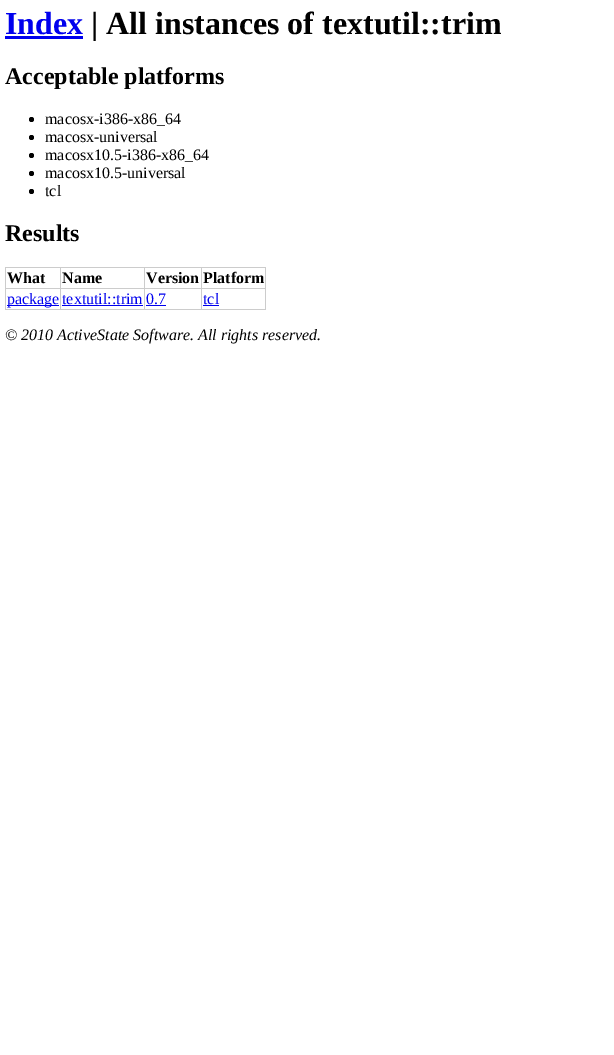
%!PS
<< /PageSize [614 1055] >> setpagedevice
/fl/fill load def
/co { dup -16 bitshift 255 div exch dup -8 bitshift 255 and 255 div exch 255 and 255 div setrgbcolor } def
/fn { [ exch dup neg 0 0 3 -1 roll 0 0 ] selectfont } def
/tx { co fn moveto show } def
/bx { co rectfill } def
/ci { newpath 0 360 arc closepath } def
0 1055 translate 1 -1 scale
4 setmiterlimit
0 0 614 1055 16#FFFFFF bx
5 36 78 3 16#0000EE bx
16#000000 co
31.5 119.5 2.5 ci fl
31.5 137.5 2.5 ci fl
31.5 155.5 2.5 ci fl
31.5 173.5 2.5 ci fl
31.5 191.5 2.5 ci fl
201 267 65 1 16#CCCCCC bx
201 288 65 1 16#CCCCCC bx
265 288 1 22 16#CCCCCC bx
201 309 65 1 16#CCCCCC bx
201 288 1 22 16#CCCCCC bx
144 288 58 1 16#CCCCCC bx
201 267 1 22 16#CCCCCC bx
144 267 58 1 16#CCCCCC bx
144 309 58 1 16#CCCCCC bx
144 288 1 22 16#CCCCCC bx
60 288 85 1 16#CCCCCC bx
144 267 1 22 16#CCCCCC bx
60 267 85 1 16#CCCCCC bx
60 309 85 1 16#CCCCCC bx
60 288 1 22 16#CCCCCC bx
5 288 56 1 16#CCCCCC bx
60 267 1 22 16#CCCCCC bx
5 267 56 1 16#CCCCCC bx
5 309 56 1 16#CCCCCC bx
5 288 1 22 16#CCCCCC bx
5 267 1 22 16#CCCCCC bx
265 267 1 22 16#CCCCCC bx
7 305 52 1 16#0000EE bx
62 305 81 1 16#0000EE bx
146 305 20 1 16#0000EE bx
203 305 16 1 16#0000EE bx
(Index) 5 34 /LiberationSerif-Bold 32 16#0000EE tx
(| All instances of textutil::trim) 91 34 /LiberationSerif-Bold 32 16#000000 tx
(Acceptable platforms) 5 84 /LiberationSerif-Bold 24 16#000000 tx
(macosx-i386-x86_64) 45 124 /LiberationSerif-Regular 16 16#000000 tx
(macosx-universal) 45 142 /LiberationSerif-Regular 16 16#000000 tx
(macosx10.5-i386-x86_64) 45 160 /LiberationSerif-Regular 16 16#000000 tx
(macosx10.5-universal) 45 178 /LiberationSerif-Regular 16 16#000000 tx
(tcl) 45 196 /LiberationSerif-Regular 16 16#000000 tx
(Results) 5 241 /LiberationSerif-Bold 24 16#000000 tx
(What) 7 283 /LiberationSerif-Bold 16 16#000000 tx
(Name) 62 283 /LiberationSerif-Bold 16 16#000000 tx
(Version) 146 283 /LiberationSerif-Bold 16 16#000000 tx
(Platform) 203 283 /LiberationSerif-Bold 16 16#000000 tx
(package) 7 304 /LiberationSerif-Regular 16 16#0000EE tx
(textutil::trim) 62 304 /LiberationSerif-Regular 16 16#0000EE tx
(0.7) 146 304 /LiberationSerif-Regular 16 16#0000EE tx
(tcl) 203 304 /LiberationSerif-Regular 16 16#0000EE tx
(© 2010 ActiveState Software. All rights reserved.) 5 340 /LiberationSerif-Italic 16 16#000000 tx
showpage
